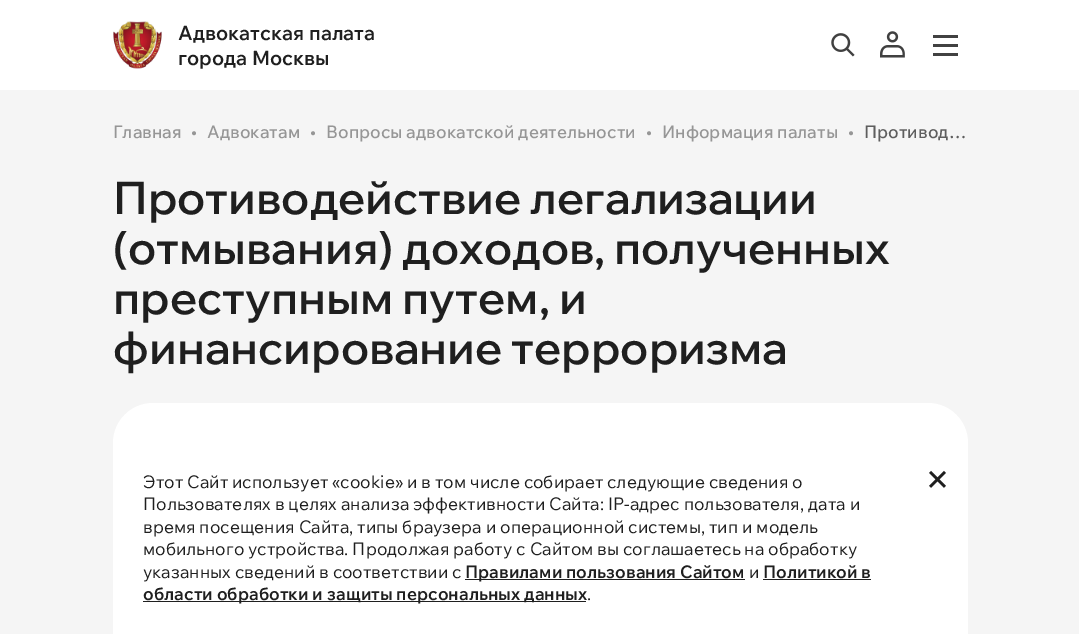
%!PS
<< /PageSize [1079 634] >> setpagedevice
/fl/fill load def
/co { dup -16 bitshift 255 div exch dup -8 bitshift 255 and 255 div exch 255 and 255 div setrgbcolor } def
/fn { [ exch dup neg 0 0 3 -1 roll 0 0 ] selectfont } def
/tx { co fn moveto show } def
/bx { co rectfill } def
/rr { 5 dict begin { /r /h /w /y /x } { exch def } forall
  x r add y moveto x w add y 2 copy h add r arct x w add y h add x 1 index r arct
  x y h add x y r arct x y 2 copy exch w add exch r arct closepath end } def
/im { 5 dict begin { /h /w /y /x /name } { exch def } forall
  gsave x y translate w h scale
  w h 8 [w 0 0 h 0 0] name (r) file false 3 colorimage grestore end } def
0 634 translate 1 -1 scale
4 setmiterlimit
0 0 1079 634 16#F5F5F5 bx
0 0 1079 90 16#FFFFFF bx
(media/1.raw) 113 21 49 48 im
(media/2.raw) 831 33 24 24 im
(media/3.raw) 880 31 25 27 im
933 35 25 3 16#414141 bx
933 44 25 3 16#414141 bx
933 53 25 3 16#414141 bx
16#FFFFFF co
113 403 855 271 40 rr fl
(media/4.raw) 929 470 17 18 im
465 579 280 1 16#1F1F1F bx
763 579 108 1 16#1F1F1F bx
143 601 443 1 16#1F1F1F bx
(Адвокатская палата) 178 40 /WixMadeforText-SemiBold 20 16#1F1F1F tx
(города Москвы) 178 65 /WixMadeforText-SemiBold 20 16#1F1F1F tx
(Главная) 113 138 /WixMadeforText-Medium 17.5 16#969696 tx
(•) 191 138 /WixMadeforText-Medium 17.5 16#969696 tx
(Адвокатам) 207 138 /WixMadeforText-Medium 17.5 16#969696 tx
(•) 310 138 /WixMadeforText-Medium 17.5 16#969696 tx
(Вопросы адвокатской деятельности) 326 138 /WixMadeforText-Medium 17.5 16#969696 tx
(•) 646 138 /WixMadeforText-Medium 17.5 16#969696 tx
(Информация палаты) 662 138 /WixMadeforText-Medium 17.5 16#969696 tx
(•) 848 138 /WixMadeforText-Medium 17.5 16#969696 tx
(Противод…) 864 138 /WixMadeforText-Medium 17.5 16#5E5E5E tx
(Противодействие легализации) 113 214 /WixMadeforDisplay-SemiBold 45 16#1F1F1F tx
(\(отмывания\) доходов, полученных) 113 264 /WixMadeforDisplay-SemiBold 45 16#1F1F1F tx
(преступным путем, и) 113 314 /WixMadeforDisplay-SemiBold 45 16#1F1F1F tx
(финансирование терроризма) 113 364 /WixMadeforDisplay-SemiBold 45 16#1F1F1F tx
(Этот Сайт использует «cookie» и в том числе собирает следующие сведения о) 143 488 /WixMadeforText-Regular 17.5 16#1F1F1F tx
(Пользователях в целях анализа эффективности Сайта: IP-адрес пользователя, дата и) 143 510 /WixMadeforText-Regular 17.5 16#1F1F1F tx
(время посещения Сайта, типы браузера и операционной системы, тип и модель) 143 533 /WixMadeforText-Regular 17.5 16#1F1F1F tx
(мобильного устройства. Продолжая работу с Сайтом вы соглашаетесь на обработку) 143 555 /WixMadeforText-Regular 17.5 16#1F1F1F tx
(указанных сведений в соответствии с) 143 578 /WixMadeforText-Regular 17.5 16#1F1F1F tx
(Правилами пользования Сайтом) 465 578 /WixMadeforText-SemiBold 17.5 16#1F1F1F tx
(и) 749 578 /WixMadeforText-Regular 17.5 16#1F1F1F tx
(Политикой в) 763 578 /WixMadeforText-SemiBold 17.5 16#1F1F1F tx
(области обработки и защиты персональных данных) 143 600 /WixMadeforText-SemiBold 17.5 16#1F1F1F tx
(.) 587 600 /WixMadeforText-Regular 17.5 16#1F1F1F tx
showpage
